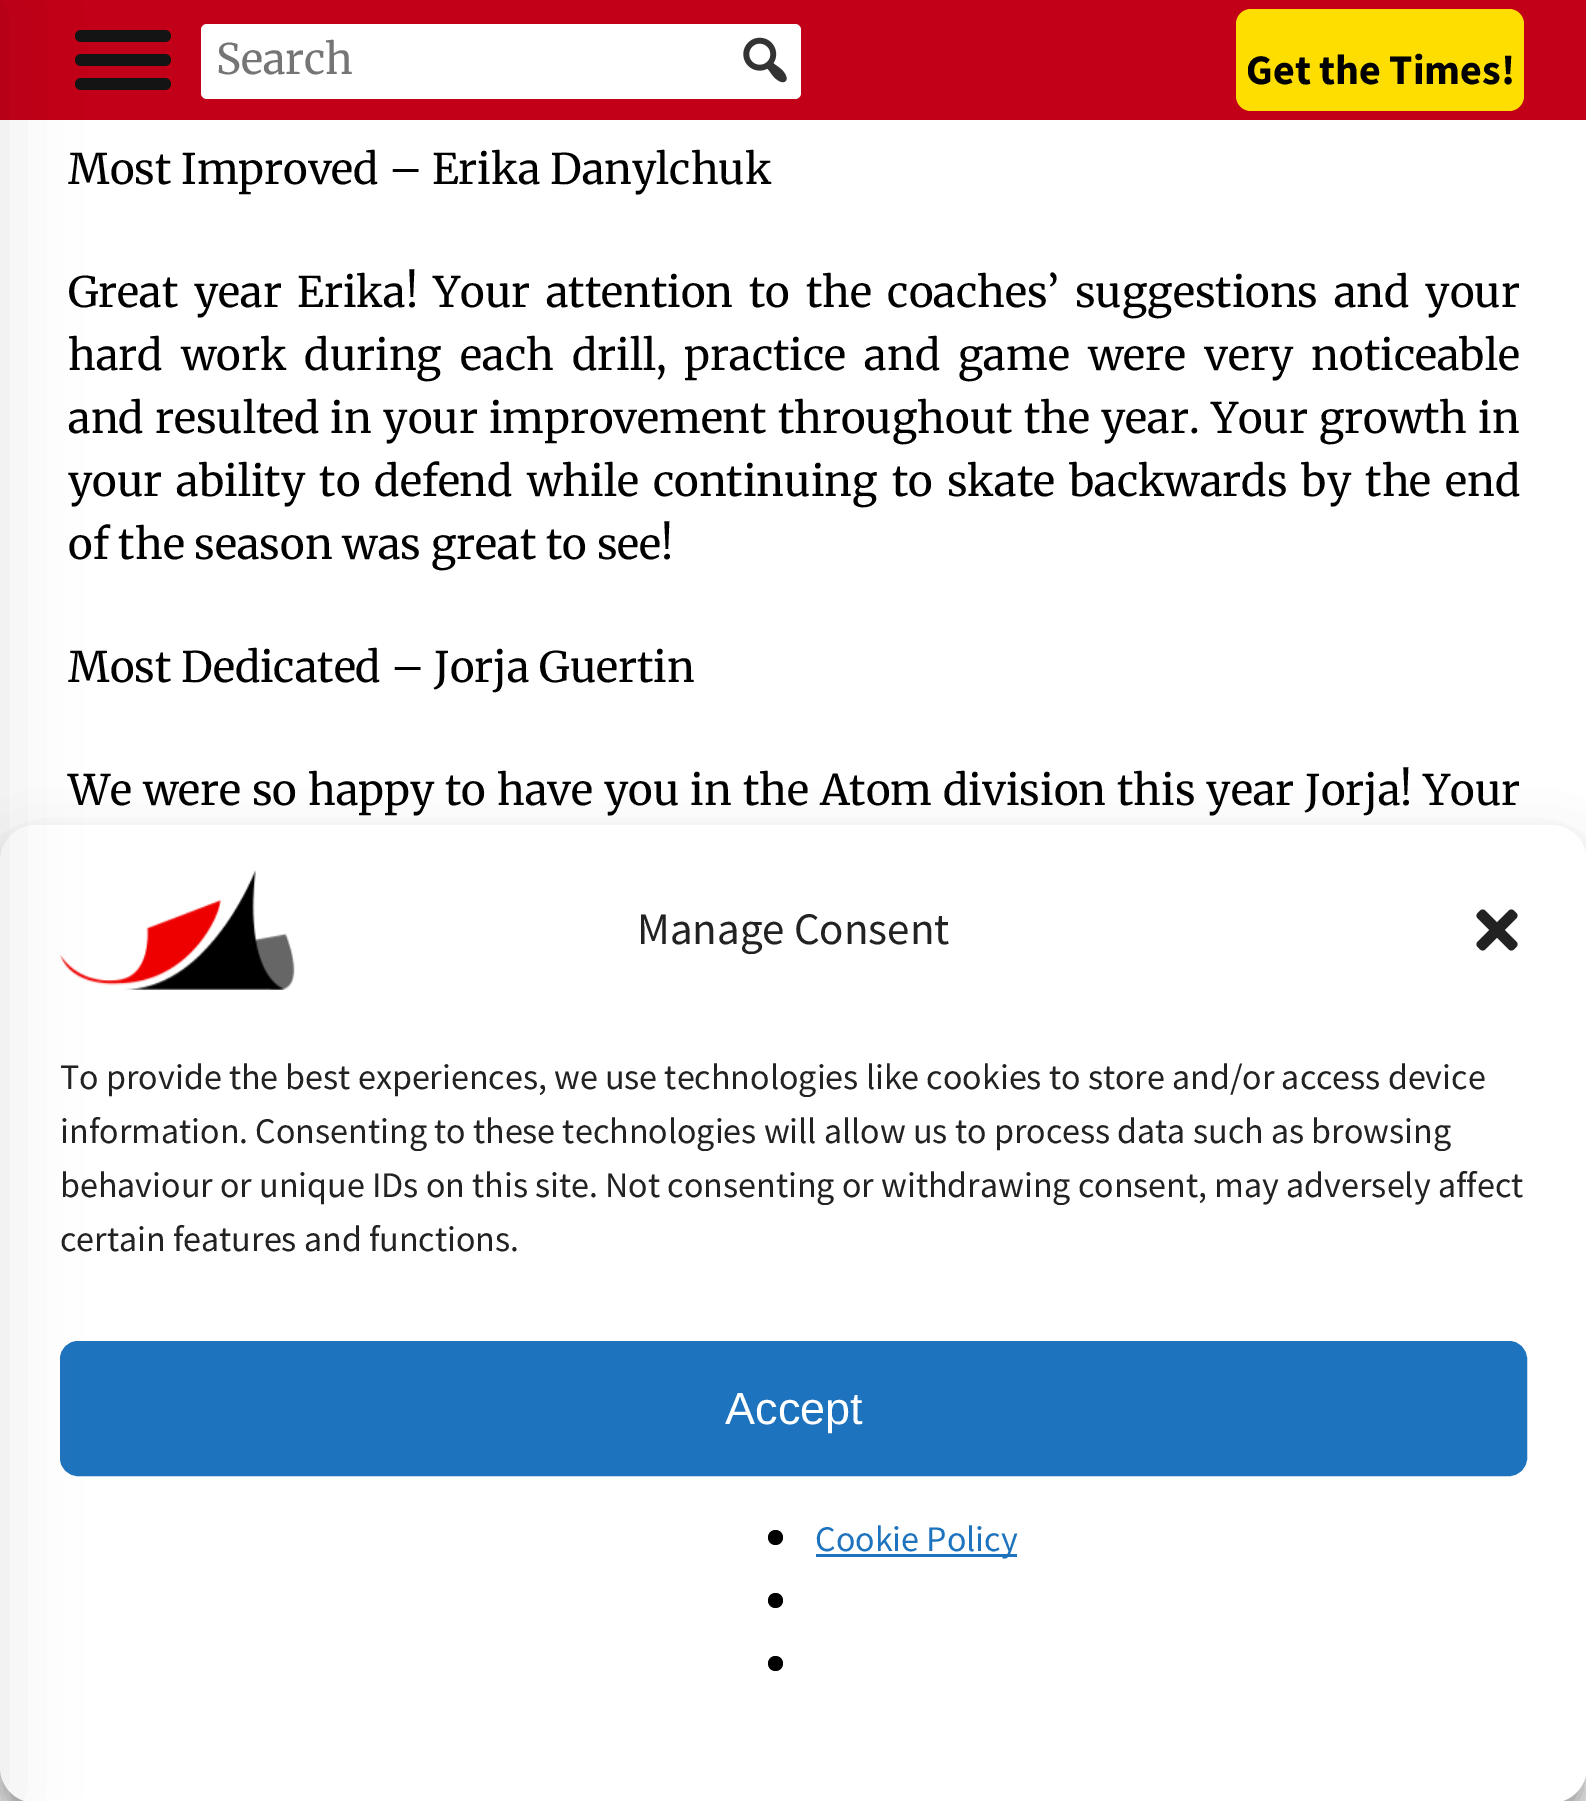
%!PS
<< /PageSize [1586 1801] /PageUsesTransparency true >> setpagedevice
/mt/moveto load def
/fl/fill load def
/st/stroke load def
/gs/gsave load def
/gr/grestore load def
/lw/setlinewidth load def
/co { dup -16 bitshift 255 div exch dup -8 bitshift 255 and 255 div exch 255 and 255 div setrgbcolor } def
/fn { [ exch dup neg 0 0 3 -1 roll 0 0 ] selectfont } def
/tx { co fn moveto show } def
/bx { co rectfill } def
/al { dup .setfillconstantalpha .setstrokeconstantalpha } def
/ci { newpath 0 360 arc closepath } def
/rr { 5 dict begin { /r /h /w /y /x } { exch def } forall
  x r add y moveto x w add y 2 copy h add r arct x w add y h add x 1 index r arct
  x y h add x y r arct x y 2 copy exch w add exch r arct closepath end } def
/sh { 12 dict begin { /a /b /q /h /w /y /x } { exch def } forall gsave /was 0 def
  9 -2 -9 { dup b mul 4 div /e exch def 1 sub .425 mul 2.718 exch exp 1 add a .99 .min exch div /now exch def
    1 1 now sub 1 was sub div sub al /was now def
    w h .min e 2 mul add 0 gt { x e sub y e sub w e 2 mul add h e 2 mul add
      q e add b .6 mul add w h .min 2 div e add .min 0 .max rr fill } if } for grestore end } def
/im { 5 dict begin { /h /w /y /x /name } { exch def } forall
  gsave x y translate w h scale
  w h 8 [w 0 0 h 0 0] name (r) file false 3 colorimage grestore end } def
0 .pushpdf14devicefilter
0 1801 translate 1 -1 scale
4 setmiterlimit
0 0 1586 1801 16#FFFFFF bx
0 0 1586 120 16#C20017 bx
16#141414 co
75 30 96 12 6 rr fl
75 54 96 12 6 rr fl
75 78 96 12 6 rr fl
16#000000 co
0 843 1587 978 36 9 .23 sh
0 855 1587 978 36 30 .19 sh
16#FFFFFF co
0 825 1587 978 36 rr fl
(media/2.raw) 60 870 235 120 im
16#1E73BE co
61.5 1342.5 1464 132 16.5 rr gs fl gr
3 lw
st
16#000000 co
-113 0 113 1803 0 37.5 .1 sh
16#FFFFFF co
201 24 600 75 6 rr fl
(media/1.raw) 743 37 44 46 im
16#FEDD00 co
1236 9 288 102 15 rr fl
(media/3.raw) 1476 909 42 42 im
16#000000 co
775.5 1537.5 7.5 ci fl
816 1554 201 3 16#1E73BE bx
16#000000 co
775.5 1600.5 7.5 ci fl
775.5 1663.5 7.5 ci fl
(Search) 216 74 /Merriweather-Regular 42 16#757575 tx
(Get the Times!) 1246 84 /SourceSansPro-Bold 42 16#000000 tx
(Most Improved – Erika Danylchuk) 68 184 /Merriweather-Regular 42 16#000000 tx
68 307 mt 5.75 0 32 (Great year Erika! Your attention to the coaches’ suggestions and your) widthshow
68 370 mt 8.25 0 32 (hard work during each drill, practice and game were very noticeable) widthshow
68 433 mt 1.25 0 32 (and resulted in your improvement throughout the year. Your growth in) widthshow
68 496 mt 4.25 0 32 (your ability to defend while continuing to skate backwards by the end) widthshow
(of the season was great to see!) 68 559 /Merriweather-Regular 42 16#000000 tx
(Most Dedicated – Jorja Guertin) 68 682 /Merriweather-Regular 42 16#000000 tx
68 805 mt 1 0 32 (We were so happy to have you in the Atom division this year Jorja! Your) widthshow
(Manage Consent) 637 944 /SourceSansPro-Regular 45 16#222222 tx
(To provide the best experiences, we use technologies like cookies to store and/or access device) 60 1089 /SourceSansPro-Regular 36 16#222222 tx
(information. Consenting to these technologies will allow us to process data such as browsing) 60 1143 /SourceSansPro-Regular 36 16#222222 tx
(behaviour or unique IDs on this site. Not consenting or withdrawing consent, may adversely affect) 60 1197 /SourceSansPro-Regular 36 16#222222 tx
(certain features and functions.) 60 1251 /SourceSansPro-Regular 36 16#222222 tx
(Accept) 725 1424 /LiberationSans-Regular 45 16#FFFFFF tx
(Cookie Policy) 815 1551 /SourceSansPro-Regular 36 16#1E73BE tx
.poppdf14devicefilter showpage
